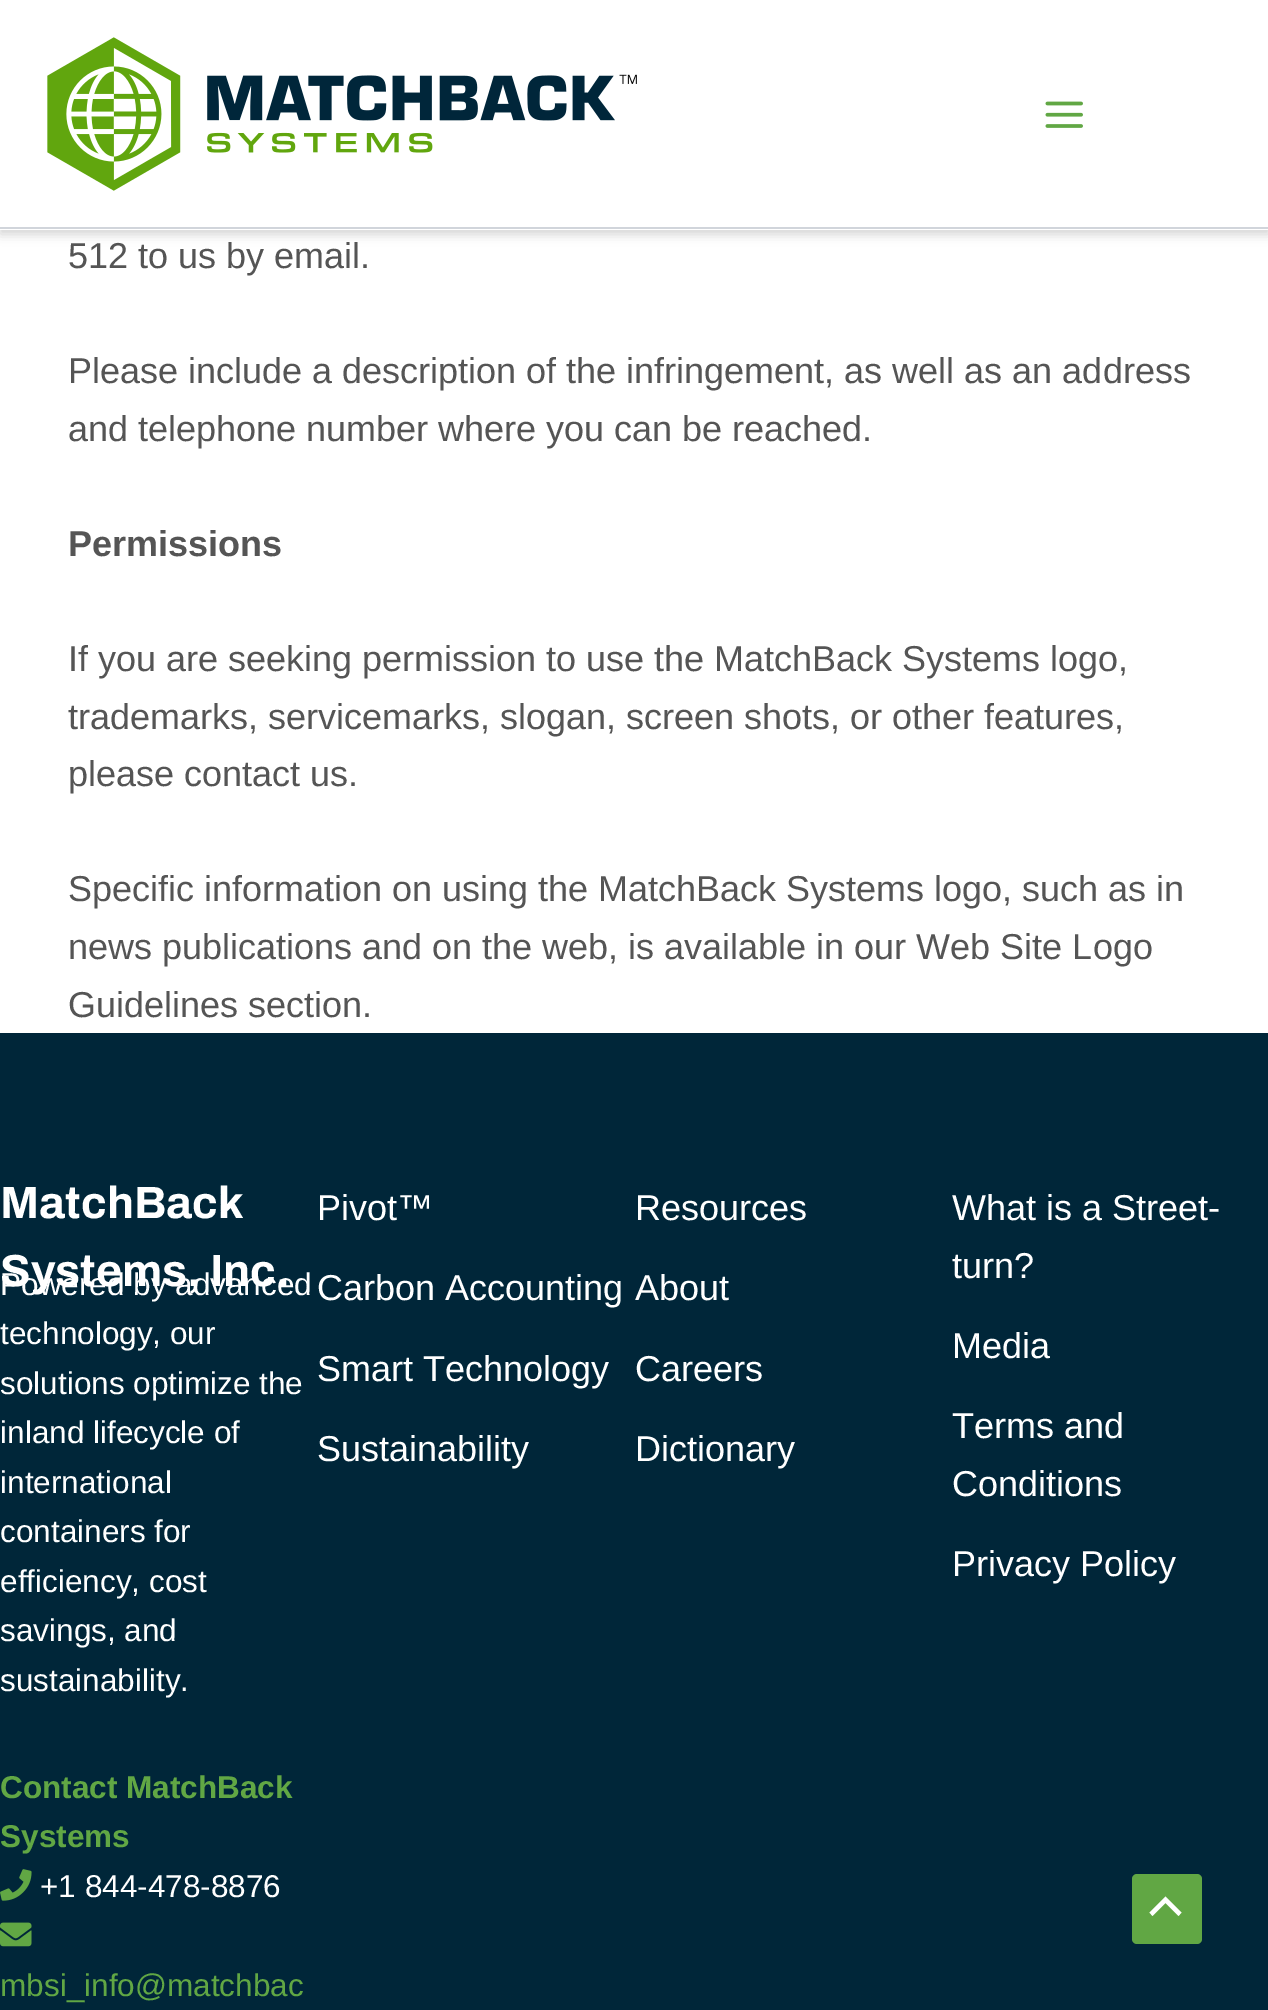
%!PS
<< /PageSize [1268 2010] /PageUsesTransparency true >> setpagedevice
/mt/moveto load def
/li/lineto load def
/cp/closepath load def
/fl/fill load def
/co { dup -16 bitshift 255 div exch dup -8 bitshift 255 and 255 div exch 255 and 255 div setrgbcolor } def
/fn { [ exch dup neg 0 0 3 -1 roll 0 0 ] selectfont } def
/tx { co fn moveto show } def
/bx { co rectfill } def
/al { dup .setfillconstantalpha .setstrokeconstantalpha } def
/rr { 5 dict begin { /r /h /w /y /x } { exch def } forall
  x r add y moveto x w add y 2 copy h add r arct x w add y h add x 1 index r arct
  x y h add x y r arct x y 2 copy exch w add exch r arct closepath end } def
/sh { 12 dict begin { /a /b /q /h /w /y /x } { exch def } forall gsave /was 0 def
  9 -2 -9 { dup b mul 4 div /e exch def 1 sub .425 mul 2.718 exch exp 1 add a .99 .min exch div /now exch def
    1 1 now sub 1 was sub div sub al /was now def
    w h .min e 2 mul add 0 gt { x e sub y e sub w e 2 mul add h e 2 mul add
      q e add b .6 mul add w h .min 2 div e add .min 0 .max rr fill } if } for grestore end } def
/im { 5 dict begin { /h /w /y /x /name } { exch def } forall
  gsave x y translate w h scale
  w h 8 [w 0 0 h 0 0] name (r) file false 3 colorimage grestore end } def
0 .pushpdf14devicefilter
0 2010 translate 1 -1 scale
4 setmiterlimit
0 0 1268 2010 16#FFFFFF bx
16#000000 co
0 5 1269 229 0 5.5 .18 sh
0 0 1268 230 16#FFFFFF bx
0 227 1268 2 16#D1D5DB bx
(media/1.raw) 47 37 590 154 im
(media/2.raw) 1045 101 38 27 im
0 1033 1268 977 16#002639 bx
(media/3.raw) 0 1869 32 32 im
(media/4.raw) 0 1922 32 25 im
16#61A744 co
1132 1874 70 70 5 rr fl
16#FFFFFF co
1181.5 1912.5 mt 1165.5 1896.5 li 1149.5 1912.5 li 1152.5 1916 li 1165.5 1903 li 1178.5 1916 li cp fl
(512 to us by email.) 68 268 /LiberationSans-Regular 36 16#555555 tx
(Please include a description of the infringement, as well as an address) 68 383 /LiberationSans-Regular 36 16#555555 tx
(and telephone number where you can be reached.) 68 441 /LiberationSans-Regular 36 16#555555 tx
(Permissions) 68 556 /LiberationSans-Bold 36 16#555555 tx
(If you are seeking permission to use the MatchBack Systems logo,) 68 671 /LiberationSans-Regular 36 16#555555 tx
(trademarks, servicemarks, slogan, screen shots, or other features,) 68 729 /LiberationSans-Regular 36 16#555555 tx
(please contact us.) 68 786 /LiberationSans-Regular 36 16#555555 tx
(Specific information on using the MatchBack Systems logo, such as in) 68 901 /LiberationSans-Regular 36 16#555555 tx
(news publications and on the web, is available in our Web Site Logo) 68 959 /LiberationSans-Regular 36 16#555555 tx
(Guidelines section.) 68 1017 /LiberationSans-Regular 36 16#555555 tx
(MatchBack) 0 1218 /Archivo-SemiBold 45 16#FFFFFF tx
(Systems, Inc.) 0 1286 /Archivo-SemiBold 45 16#FFFFFF tx
(Powered by advanced) 0 1295 /LiberationSans-Regular 31.5 16#FFFFFF tx
(technology, our) 0 1344 /LiberationSans-Regular 31.5 16#FFFFFF tx
(solutions optimize the) 0 1394 /LiberationSans-Regular 31.5 16#FFFFFF tx
(inland lifecycle of) 0 1443 /LiberationSans-Regular 31.5 16#FFFFFF tx
(international) 0 1493 /LiberationSans-Regular 31.5 16#FFFFFF tx
(containers for) 0 1542 /LiberationSans-Regular 31.5 16#FFFFFF tx
(efficiency, cost) 0 1592 /LiberationSans-Regular 31.5 16#FFFFFF tx
(savings, and) 0 1641 /LiberationSans-Regular 31.5 16#FFFFFF tx
(sustainability.) 0 1691 /LiberationSans-Regular 31.5 16#FFFFFF tx
(Contact MatchBack) 0 1798 /LiberationSans-Bold 31.5 16#61A744 tx
(Systems) 0 1847 /LiberationSans-Bold 31.5 16#61A744 tx
(+1 844-478-8876) 40 1897 /LiberationSans-Regular 31.5 16#FFFFFF tx
(mbsi_info@matchbac) 0 1996 /LiberationSans-Regular 31.5 16#61A744 tx
(Pivot™) 317 1220 /LiberationSans-Regular 36 16#FFFFFF tx
(Carbon Accounting) 317 1300 /LiberationSans-Regular 36 16#FFFFFF tx
(Smart Technology) 317 1381 /LiberationSans-Regular 36 16#FFFFFF tx
(Sustainability) 317 1461 /LiberationSans-Regular 36 16#FFFFFF tx
(Resources) 635 1220 /LiberationSans-Regular 36 16#FFFFFF tx
(About) 635 1300 /LiberationSans-Regular 36 16#FFFFFF tx
(Careers) 635 1381 /LiberationSans-Regular 36 16#FFFFFF tx
(Dictionary) 635 1461 /LiberationSans-Regular 36 16#FFFFFF tx
(What is a Street-) 952 1220 /LiberationSans-Regular 36 16#FFFFFF tx
(turn?) 952 1278 /LiberationSans-Regular 36 16#FFFFFF tx
(Media) 952 1358 /LiberationSans-Regular 36 16#FFFFFF tx
(Terms and) 952 1438 /LiberationSans-Regular 36 16#FFFFFF tx
(Conditions) 952 1496 /LiberationSans-Regular 36 16#FFFFFF tx
(Privacy Policy) 952 1576 /LiberationSans-Regular 36 16#FFFFFF tx
.poppdf14devicefilter showpage
